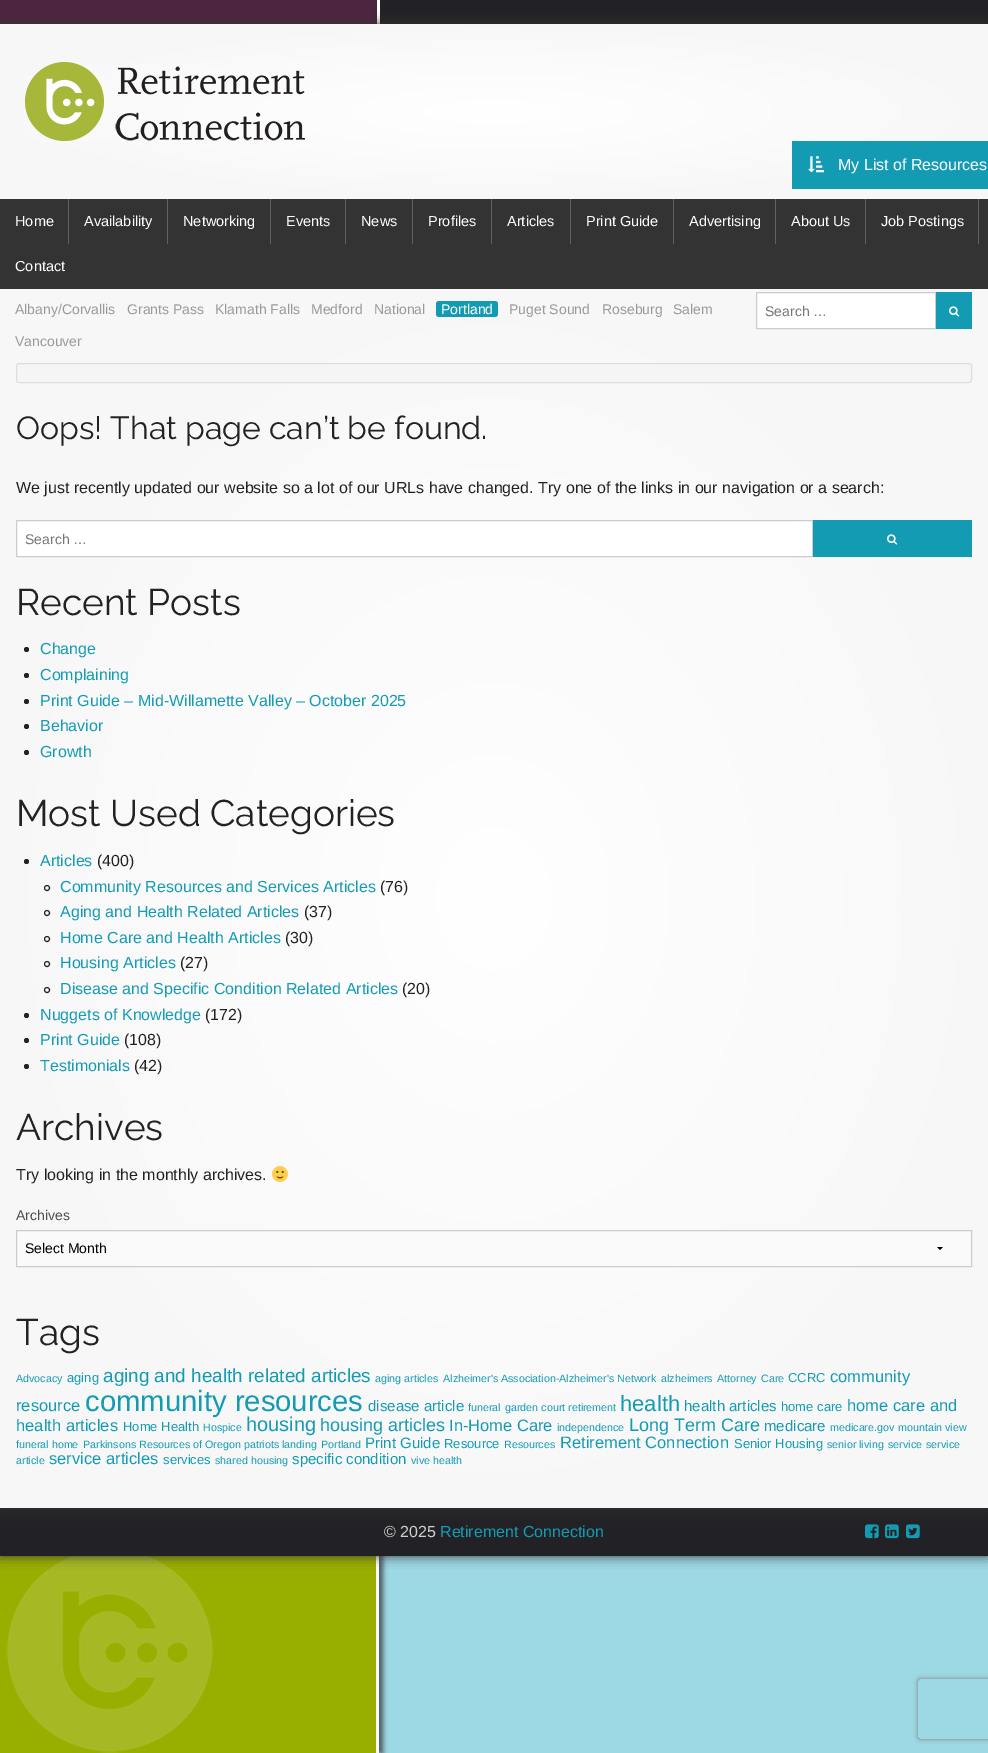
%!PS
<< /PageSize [988 1753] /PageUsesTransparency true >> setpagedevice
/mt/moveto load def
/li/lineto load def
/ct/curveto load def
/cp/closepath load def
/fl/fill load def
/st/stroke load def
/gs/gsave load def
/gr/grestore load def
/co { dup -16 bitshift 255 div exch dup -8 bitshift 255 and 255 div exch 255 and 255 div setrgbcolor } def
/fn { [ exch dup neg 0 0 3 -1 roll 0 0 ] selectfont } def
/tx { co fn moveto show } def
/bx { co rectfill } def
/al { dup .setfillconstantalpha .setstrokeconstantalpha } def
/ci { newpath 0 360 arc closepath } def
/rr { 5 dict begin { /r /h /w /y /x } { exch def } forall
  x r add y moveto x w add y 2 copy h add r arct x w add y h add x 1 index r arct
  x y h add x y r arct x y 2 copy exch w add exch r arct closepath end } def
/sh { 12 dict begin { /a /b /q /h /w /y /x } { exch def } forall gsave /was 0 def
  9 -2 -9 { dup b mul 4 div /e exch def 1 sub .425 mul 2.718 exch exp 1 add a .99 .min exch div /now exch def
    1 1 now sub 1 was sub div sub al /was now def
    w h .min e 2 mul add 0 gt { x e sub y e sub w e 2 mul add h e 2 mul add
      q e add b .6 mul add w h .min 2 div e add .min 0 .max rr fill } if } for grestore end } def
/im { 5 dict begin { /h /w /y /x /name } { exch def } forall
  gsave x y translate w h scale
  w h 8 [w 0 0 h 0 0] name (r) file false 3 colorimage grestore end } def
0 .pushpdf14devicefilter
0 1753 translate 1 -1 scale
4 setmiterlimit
0 0 988 1753 16#9DD9E4 bx
0 0 377 24 16#4D2541 bx
16#323232 co
377 4 611 445 0 2.5 .75 sh
380 0 608 24 16#222226 bx
377 0 3 24 16#FFFFFF bx
16#323232 co
0 24 988 175 0 6 1 sh
gs 0 24 mt 988 24 li 988 199 li 0 199 li cp clip newpath 494 112 translate 699 124 scale
<< /ShadingType 3 /ColorSpace /DeviceRGB /Coords [0 0 0 0 0 1] /Extend [true true] /Function << /FunctionType 3 /Domain [0 1] /Functions [<< /FunctionType 2 /Domain [0 1] /C0 [1 1 1] /C1 [.969 .969 .969] /N 1 >> << /FunctionType 2 /Domain [0 1] /C0 [.969 .969 .969] /C1 [.969 .969 .969] /N 1 >>] /Bounds [.78] /Encode [0 1 0 1] >> >> shfill gr
(media/1.raw) 25 62 280 79 im
792 141 196 48 16#149BB4 bx
(media/2.raw) 808 156 16 17 im
16#323232 co
4 445 379 1308 0 2.5 .75 sh
0 1556 376 197 16#99AF00 bx
(media/5.raw) 6 1556 207 197 im
376 1556 3 197 16#FFFFFF bx
16#323232 co
0 1508 988 48 0 6 1 sh
0 1508 988 48 16#222226 bx
(media/6.raw) 865 1524 14 15 im
(media/7.raw) 885 1524 14 15 im
(media/8.raw) 906 1524 14 15 im
16#323232 co
0 289 988 1219 0 6 1 sh
0 199 988 90 16#333333 bx
68 199 1 45 16#616161 bx
167 199 1 45 16#616161 bx
270 199 1 45 16#616161 bx
345 199 1 45 16#616161 bx
412 199 1 45 16#616161 bx
491 199 1 45 16#616161 bx
570 199 1 45 16#616161 bx
673 199 1 45 16#616161 bx
775 199 1 45 16#616161 bx
865 199 1 45 16#616161 bx
978 199 1 45 16#616161 bx
gs 0 289 mt 988 289 li 988 1508 li 0 1508 li cp clip newpath 494 899 translate 699 862 scale
<< /ShadingType 3 /ColorSpace /DeviceRGB /Coords [0 0 0 0 0 1] /Extend [true true] /Function << /FunctionType 3 /Domain [0 1] /Functions [<< /FunctionType 2 /Domain [0 1] /C0 [1 1 1] /C1 [.969 .969 .969] /N 1 >> << /FunctionType 2 /Domain [0 1] /C0 [.969 .969 .969] /C1 [.969 .969 .969] /N 1 >>] /Bounds [.78] /Encode [0 1 0 1] >> >> shfill gr
16#149BB4 co
436 301 62 16 3 rr fl
16#FFFFFF co
756.5 292.5 mt 935.5 292.5 li 935.5 328.5 li 756.5 328.5 li cp gs fl gr
16#CCCCCC co
st
936 292 36 37 16#149BB4 bx
(media/3.raw) 949 306 11 11 im
16#F5F5F5 co
16.5 363.5 955 19 2.5 rr gs fl gr
16#DDDDDD co
st
16#FFFFFF co
16.5 520.5 mt 812.5 520.5 li 812.5 556.5 li 16.5 556.5 li cp gs fl gr
16#CCCCCC co
st
813 520 159 37 16#149BB4 bx
(media/3.raw) 887 534 11 11 im
16#222222 co
26.5 649.5 2.5 ci fl
26.5 675.5 2.5 ci fl
26.5 701.5 2.5 ci fl
26.5 726.5 2.5 ci fl
26.5 752.5 2.5 ci fl
26.5 861.5 2.5 ci fl
47 888 2.5 ci st
47 913 2.5 ci st
47 939 2.5 ci st
47 964 2.5 ci st
47 990 2.5 ci st
26.5 1015.5 2.5 ci fl
26.5 1040.5 2.5 ci fl
26.5 1066.5 2.5 ci fl
(media/4.raw) 272 1166 16 16 im
17 1231 954 35 16#FAFAFA bx
16#000000 co
943 1247 mt 940 1250 li 937 1247 li cp fl
16#CCCCCC co
16.5 1230.5 955 36 rectstroke
gs
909 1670 mt 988 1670 li 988 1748 li 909 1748 li cp 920 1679 mt 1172 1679 li 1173 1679 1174 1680 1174 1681 ct 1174 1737 li 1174 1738 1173 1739 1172 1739 ct 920 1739 li 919 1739 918 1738 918 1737 ct 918 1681 li 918 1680 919 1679 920 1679 ct cp eoclip newpath
16#808080 co
918 1679 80 60 2 2.5 1 sh
gr
(My List of Resources) 838 170 /LiberationSans-Regular 16 16#FFFFFF tx
(Home) 15 226 /LiberationSans-Regular 14.5 16#FFFFFF tx
(Availability) 84 226 /LiberationSans-Regular 14.5 16#FFFFFF tx
(Networking) 183 226 /LiberationSans-Regular 14.5 16#FFFFFF tx
(Events) 286 226 /LiberationSans-Regular 14.5 16#FFFFFF tx
(News) 361 226 /LiberationSans-Regular 14.5 16#FFFFFF tx
(Profiles) 428 226 /LiberationSans-Regular 14.5 16#FFFFFF tx
(Articles) 507 226 /LiberationSans-Regular 14.5 16#FFFFFF tx
(Print Guide) 586 226 /LiberationSans-Regular 14.5 16#FFFFFF tx
(Advertising) 689 226 /LiberationSans-Regular 14.5 16#FFFFFF tx
(About Us) 791 226 /LiberationSans-Regular 14.5 16#FFFFFF tx
(Job Postings) 881 226 /LiberationSans-Regular 14.5 16#FFFFFF tx
(Contact) 15 271 /LiberationSans-Regular 14.5 16#FFFFFF tx
(Albany/Corvallis) 15 314 /LiberationSans-Regular 14 16#999999 tx
(Grants Pass) 127 314 /LiberationSans-Regular 14 16#999999 tx
(Klamath Falls) 215 314 /LiberationSans-Regular 14 16#999999 tx
(Medford) 311 314 /LiberationSans-Regular 14 16#999999 tx
(National) 374 314 /LiberationSans-Regular 14 16#999999 tx
(Portland) 441 314 /LiberationSans-Regular 14 16#FFFFFF tx
(Puget Sound) 509 314 /LiberationSans-Regular 14 16#999999 tx
(Roseburg) 602 314 /LiberationSans-Regular 14 16#999999 tx
(Salem) 673 314 /LiberationSans-Regular 14 16#999999 tx
(Vancouver) 15 346 /LiberationSans-Regular 14 16#999999 tx
(Search …) 765 316 /LiberationSans-Regular 14 16#757575 tx
(Oops! That page can’t be found.) 16 439 /Raleway-Thin 32 16#222222 tx
(We just recently updated our website so a lot of our URLs have changed. Try one of the links in our navigation or a search:) 16 493 /LiberationSans-Regular 16 16#222222 tx
(Search …) 25 544 /LiberationSans-Regular 14 16#757575 tx
(Recent Posts) 16 615 /Raleway-Thin 37 16#222222 tx
(Change) 40 654 /LiberationSans-Regular 16 16#149BB4 tx
(Complaining) 40 680 /LiberationSans-Regular 16 16#149BB4 tx
(Print Guide – Mid-Willamette Valley – October 2025) 40 706 /LiberationSans-Regular 16 16#149BB4 tx
(Behavior) 40 731 /LiberationSans-Regular 16 16#149BB4 tx
(Growth) 40 757 /LiberationSans-Regular 16 16#149BB4 tx
(Most Used Categories) 16 826 /Raleway-Thin 37 16#222222 tx
(Articles) 40 866 /LiberationSans-Regular 16 16#149BB4 tx
(\(400\)) 97 866 /LiberationSans-Regular 16 16#222222 tx
(Community Resources and Services Articles) 60 892 /LiberationSans-Regular 16 16#149BB4 tx
(\(76\)) 380 892 /LiberationSans-Regular 16 16#222222 tx
(Aging and Health Related Articles) 60 917 /LiberationSans-Regular 16 16#149BB4 tx
(\(37\)) 304 917 /LiberationSans-Regular 16 16#222222 tx
(Home Care and Health Articles) 60 943 /LiberationSans-Regular 16 16#149BB4 tx
(\(30\)) 285 943 /LiberationSans-Regular 16 16#222222 tx
(Housing Articles) 60 968 /LiberationSans-Regular 16 16#149BB4 tx
(\(27\)) 180 968 /LiberationSans-Regular 16 16#222222 tx
(Disease and Specific Condition Related Articles) 60 994 /LiberationSans-Regular 16 16#149BB4 tx
(\(20\)) 402 994 /LiberationSans-Regular 16 16#222222 tx
(Nuggets of Knowledge) 40 1020 /LiberationSans-Regular 16 16#149BB4 tx
(\(172\)) 205 1020 /LiberationSans-Regular 16 16#222222 tx
(Print Guide) 40 1045 /LiberationSans-Regular 16 16#149BB4 tx
(\(108\)) 124 1045 /LiberationSans-Regular 16 16#222222 tx
(Testimonials) 40 1071 /LiberationSans-Regular 16 16#149BB4 tx
(\(42\)) 134 1071 /LiberationSans-Regular 16 16#222222 tx
(Archives) 16 1140 /Raleway-Thin 37 16#222222 tx
(Try looking in the monthly archives.) 16 1180 /LiberationSans-Regular 16 16#222222 tx
(Archives) 16 1220 /LiberationSans-Regular 14 16#4D4D4D tx
(Select Month) 25 1253 /LiberationSans-Regular 14 16#000000 tx
(Tags) 16 1345 /Raleway-Thin 37 16#222222 tx
(Advocacy) 16 1382 /LiberationSans-Regular 10.7 16#149BB4 tx
(aging) 67 1382 /LiberationSans-Regular 13 16#149BB4 tx
(aging and health related articles) 103 1382 /LiberationSans-Regular 18.9 16#149BB4 tx
(aging articles) 375 1382 /LiberationSans-Regular 10.7 16#149BB4 tx
(Alzheimer's Association-) 443 1382 /LiberationSans-Regular 10.7 16#149BB4 tx
(Alzheimer's Network) 559 1382 /LiberationSans-Regular 10.7 16#149BB4 tx
(alzheimers) 661 1382 /LiberationSans-Regular 10.7 16#149BB4 tx
(Attorney) 717 1382 /LiberationSans-Regular 10.7 16#149BB4 tx
(Care) 761 1382 /LiberationSans-Regular 10.7 16#149BB4 tx
(CCRC) 788 1382 /LiberationSans-Regular 13 16#149BB4 tx
(community) 830 1382 /LiberationSans-Regular 16.5 16#149BB4 tx
(resource) 16 1411 /LiberationSans-Regular 16.5 16#149BB4 tx
(community resources) 85 1411 /LiberationSans-Regular 29.25 16#149BB4 tx
(disease article) 368 1411 /LiberationSans-Regular 15 16#149BB4 tx
(funeral) 468 1411 /LiberationSans-Regular 10.7 16#149BB4 tx
(garden court retirement) 505 1411 /LiberationSans-Regular 10.7 16#149BB4 tx
(health) 620 1411 /LiberationSans-Regular 22 16#149BB4 tx
(health articles) 684 1411 /LiberationSans-Regular 15 16#149BB4 tx
(home care) 781 1411 /LiberationSans-Regular 13 16#149BB4 tx
(home care and) 847 1411 /LiberationSans-Regular 16.5 16#149BB4 tx
(health articles) 16 1431 /LiberationSans-Regular 16.5 16#149BB4 tx
(Home Health) 123 1431 /LiberationSans-Regular 13 16#149BB4 tx
(Hospice) 203 1431 /LiberationSans-Regular 10.7 16#149BB4 tx
(housing) 246 1431 /LiberationSans-Regular 20 16#149BB4 tx
(housing articles) 320 1431 /LiberationSans-Regular 18 16#149BB4 tx
(In-Home Care) 449 1431 /LiberationSans-Regular 16.5 16#149BB4 tx
(independence) 557 1431 /LiberationSans-Regular 10.7 16#149BB4 tx
(Long Term Care) 629 1431 /LiberationSans-Regular 18 16#149BB4 tx
(medicare) 764 1431 /LiberationSans-Regular 15 16#149BB4 tx
(medicare.gov) 830 1431 /LiberationSans-Regular 10.7 16#149BB4 tx
(mountain view) 898 1431 /LiberationSans-Regular 10.7 16#149BB4 tx
(funeral home) 16 1448 /LiberationSans-Regular 10.7 16#149BB4 tx
(Parkinsons Resources of Oregon) 83 1448 /LiberationSans-Regular 10.7 16#149BB4 tx
(patriots landing) 244 1448 /LiberationSans-Regular 10.7 16#149BB4 tx
(Portland) 321 1448 /LiberationSans-Regular 10.7 16#149BB4 tx
(Print Guide) 365 1448 /LiberationSans-Regular 15 16#149BB4 tx
(Resource) 444 1448 /LiberationSans-Regular 13 16#149BB4 tx
(Resources) 504 1448 /LiberationSans-Regular 10.7 16#149BB4 tx
(Retirement Connection) 560 1448 /LiberationSans-Regular 16.5 16#149BB4 tx
(Senior Housing) 734 1448 /LiberationSans-Regular 13 16#149BB4 tx
(senior living) 827 1448 /LiberationSans-Regular 10.7 16#149BB4 tx
(service) 888 1448 /LiberationSans-Regular 10.7 16#149BB4 tx
(service) 926 1448 /LiberationSans-Regular 10.7 16#149BB4 tx
(article) 16 1464 /LiberationSans-Regular 10.7 16#149BB4 tx
(service articles) 49 1464 /LiberationSans-Regular 16.5 16#149BB4 tx
(services) 163 1464 /LiberationSans-Regular 13 16#149BB4 tx
(shared housing) 215 1464 /LiberationSans-Regular 10.7 16#149BB4 tx
(specific condition) 292 1464 /LiberationSans-Regular 15 16#149BB4 tx
(vive health) 411 1464 /LiberationSans-Regular 10.7 16#149BB4 tx
(© 2025) 384 1537 /LiberationSans-Regular 16 16#CFCFCF tx
(Retirement Connection) 440 1537 /LiberationSans-Regular 16 16#149BB4 tx
.poppdf14devicefilter showpage
